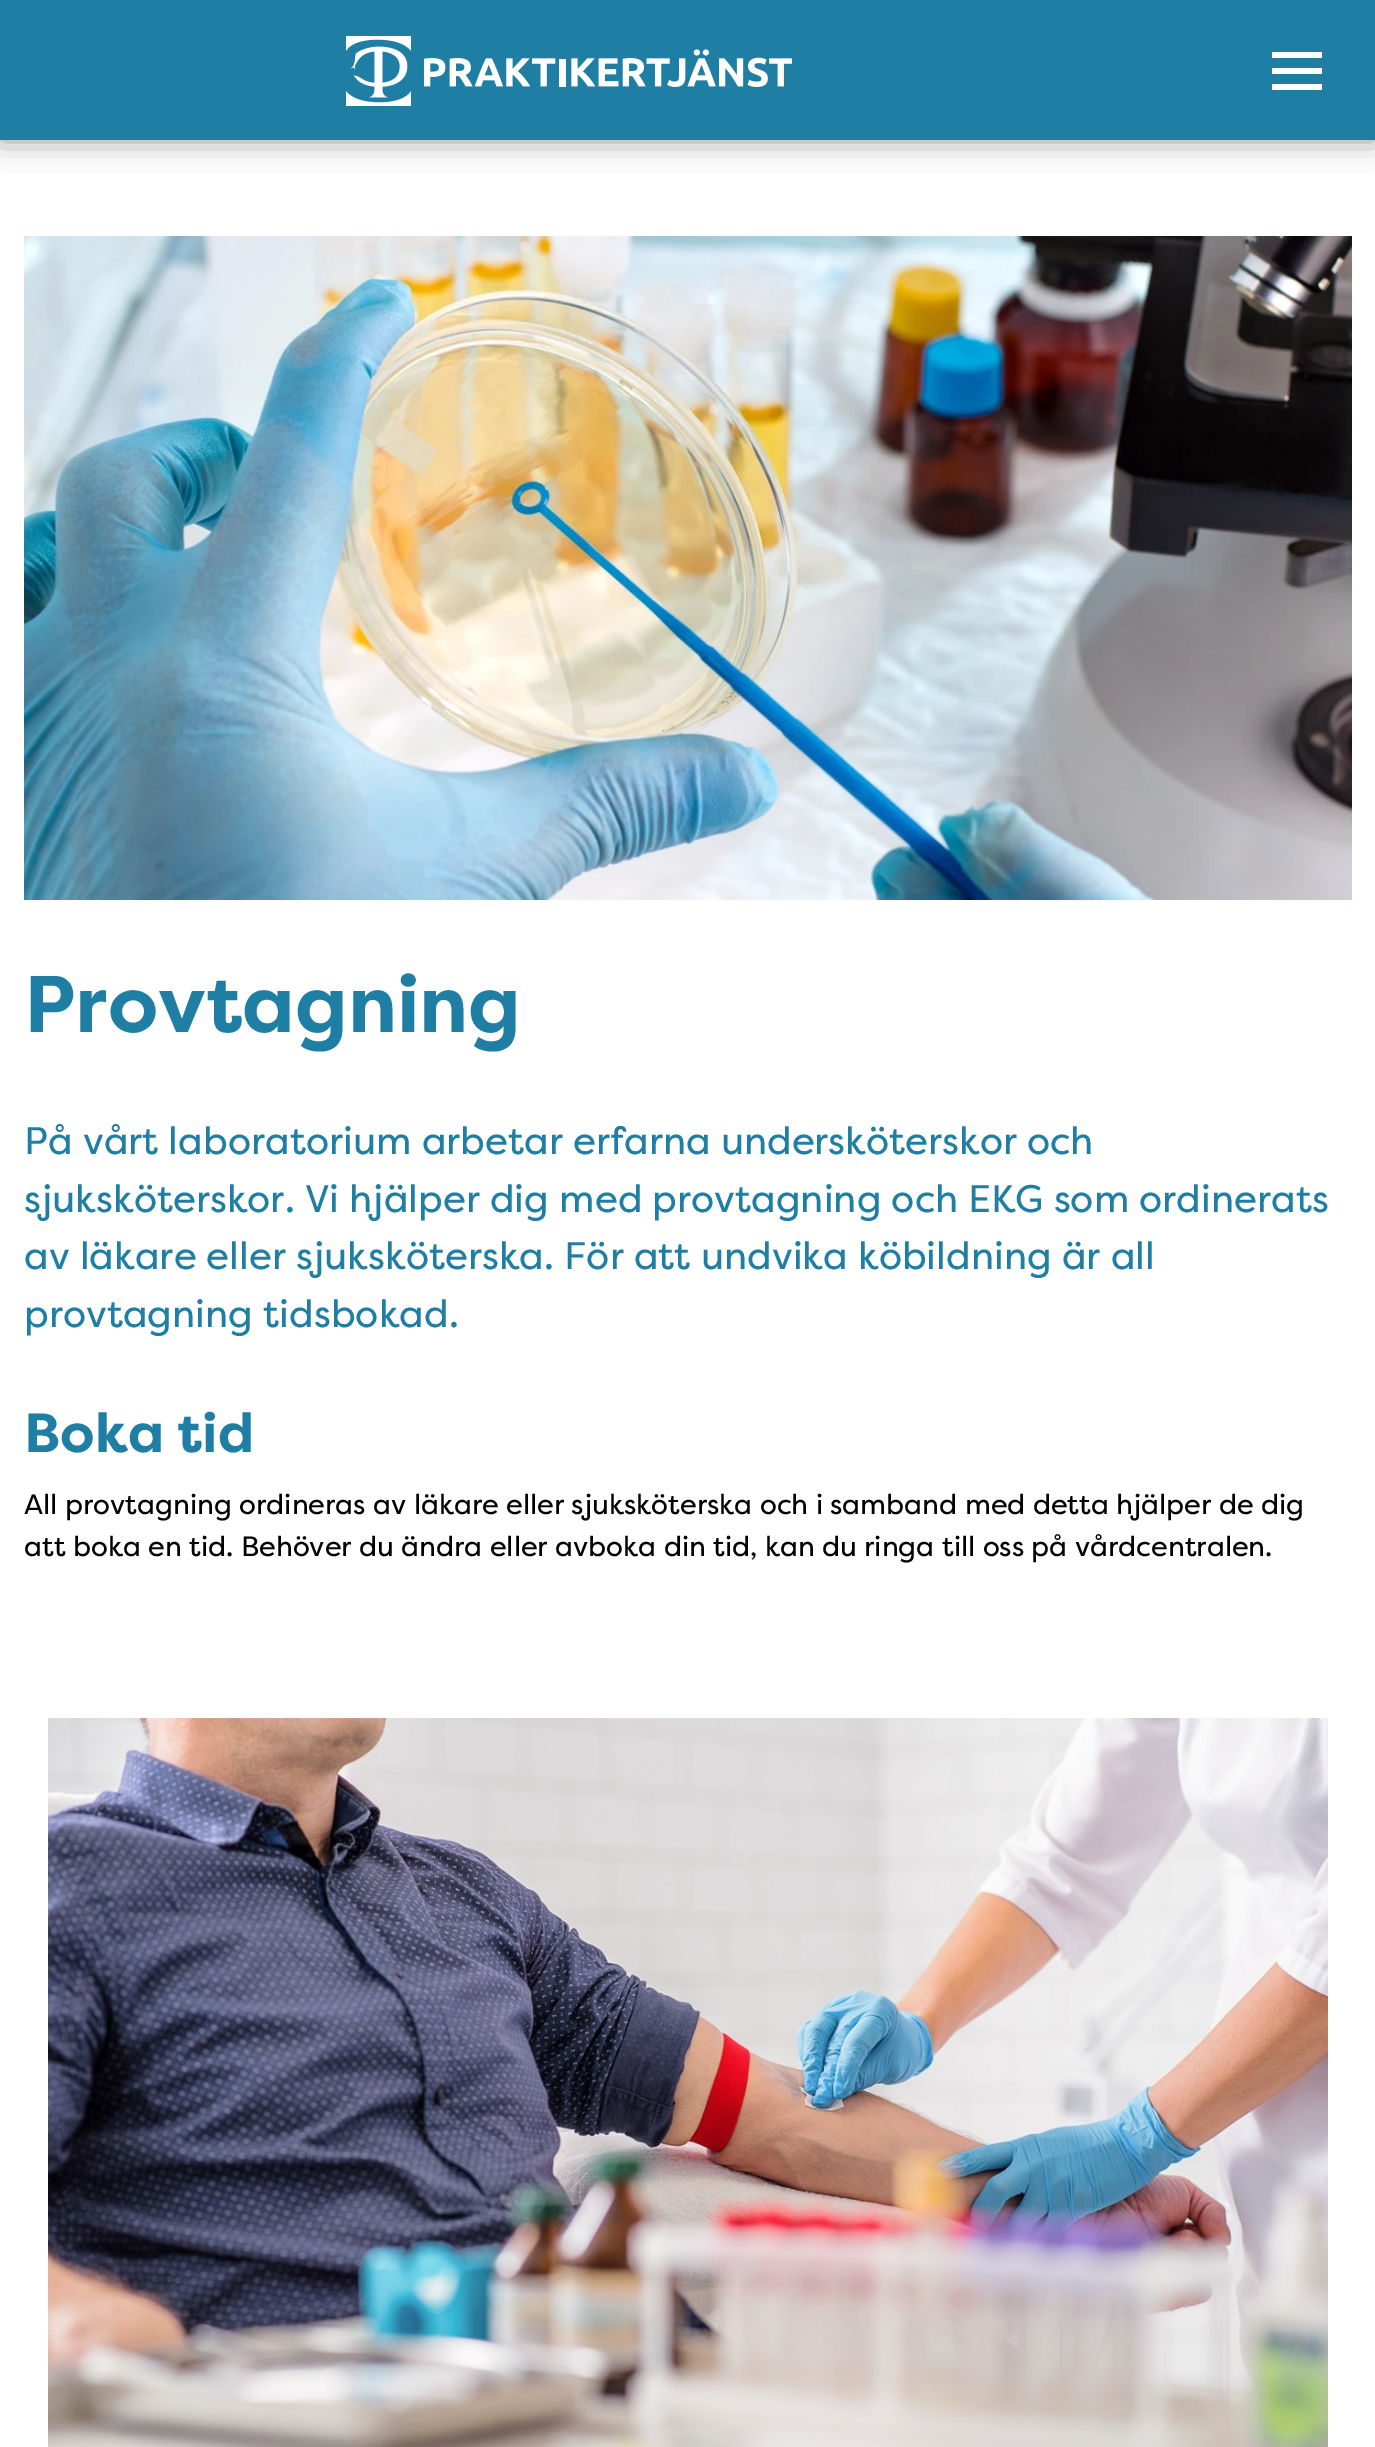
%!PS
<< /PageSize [1375 2447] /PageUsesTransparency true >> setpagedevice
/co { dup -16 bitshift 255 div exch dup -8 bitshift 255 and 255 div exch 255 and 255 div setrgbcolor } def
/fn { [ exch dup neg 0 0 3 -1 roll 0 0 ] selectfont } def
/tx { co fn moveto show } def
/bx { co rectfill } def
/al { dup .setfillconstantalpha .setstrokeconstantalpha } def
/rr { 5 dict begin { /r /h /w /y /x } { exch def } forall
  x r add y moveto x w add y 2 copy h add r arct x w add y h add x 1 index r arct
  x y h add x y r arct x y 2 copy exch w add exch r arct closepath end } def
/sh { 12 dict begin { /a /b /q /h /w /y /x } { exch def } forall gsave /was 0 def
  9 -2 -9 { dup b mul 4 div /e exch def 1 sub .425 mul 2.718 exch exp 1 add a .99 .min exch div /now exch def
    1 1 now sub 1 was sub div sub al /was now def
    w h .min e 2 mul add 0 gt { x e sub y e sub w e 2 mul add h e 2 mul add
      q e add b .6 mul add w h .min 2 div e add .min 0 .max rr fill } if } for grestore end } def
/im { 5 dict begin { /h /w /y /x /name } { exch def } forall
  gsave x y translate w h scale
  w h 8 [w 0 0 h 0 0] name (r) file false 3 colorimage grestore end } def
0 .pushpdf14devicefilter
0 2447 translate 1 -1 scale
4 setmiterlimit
0 0 1375 2447 16#FFFFFF bx
16#202020 co
0 0 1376 140 0 15 .5 sh
0 0 1375 140 16#1F7EA4 bx
(media/1.raw) 346 36 446 70 im
1272 52 50 6 16#FFFFFF bx
1272 68 50 6 16#FFFFFF bx
1272 84 50 6 16#FFFFFF bx
(media/2.raw) 24 236 1328 664 im
(media/3.raw) 48 1718 1280 729 im
(Provtagning) 24 1032 /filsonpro-Bold 80 16#1F7EA4 tx
(På vårt laboratorium arbetar erfarna undersköterskor och) 24 1154 /filsonpro-Medium 38.4 16#1F7EA4 tx
(sjuksköterskor. Vi hjälper dig med provtagning och EKG som ordinerats) 24 1212 /filsonpro-Medium 38.4 16#1F7EA4 tx
(av läkare eller sjuksköterska. För att undvika köbildning är all) 24 1269 /filsonpro-Medium 38.4 16#1F7EA4 tx
(provtagning tidsbokad.) 24 1327 /filsonpro-Medium 38.4 16#1F7EA4 tx
(Boka tid) 24 1452 /filsonpro-Bold 55 16#1F7EA4 tx
(All provtagning ordineras av läkare eller sjuksköterska och i samband med detta hjälper de dig) 24 1514 /filsonpro-Medium 28 16#000000 tx
(att boka en tid. Behöver du ändra eller avboka din tid, kan du ringa till oss på vårdcentralen.) 24 1556 /filsonpro-Medium 28 16#000000 tx
.poppdf14devicefilter showpage
